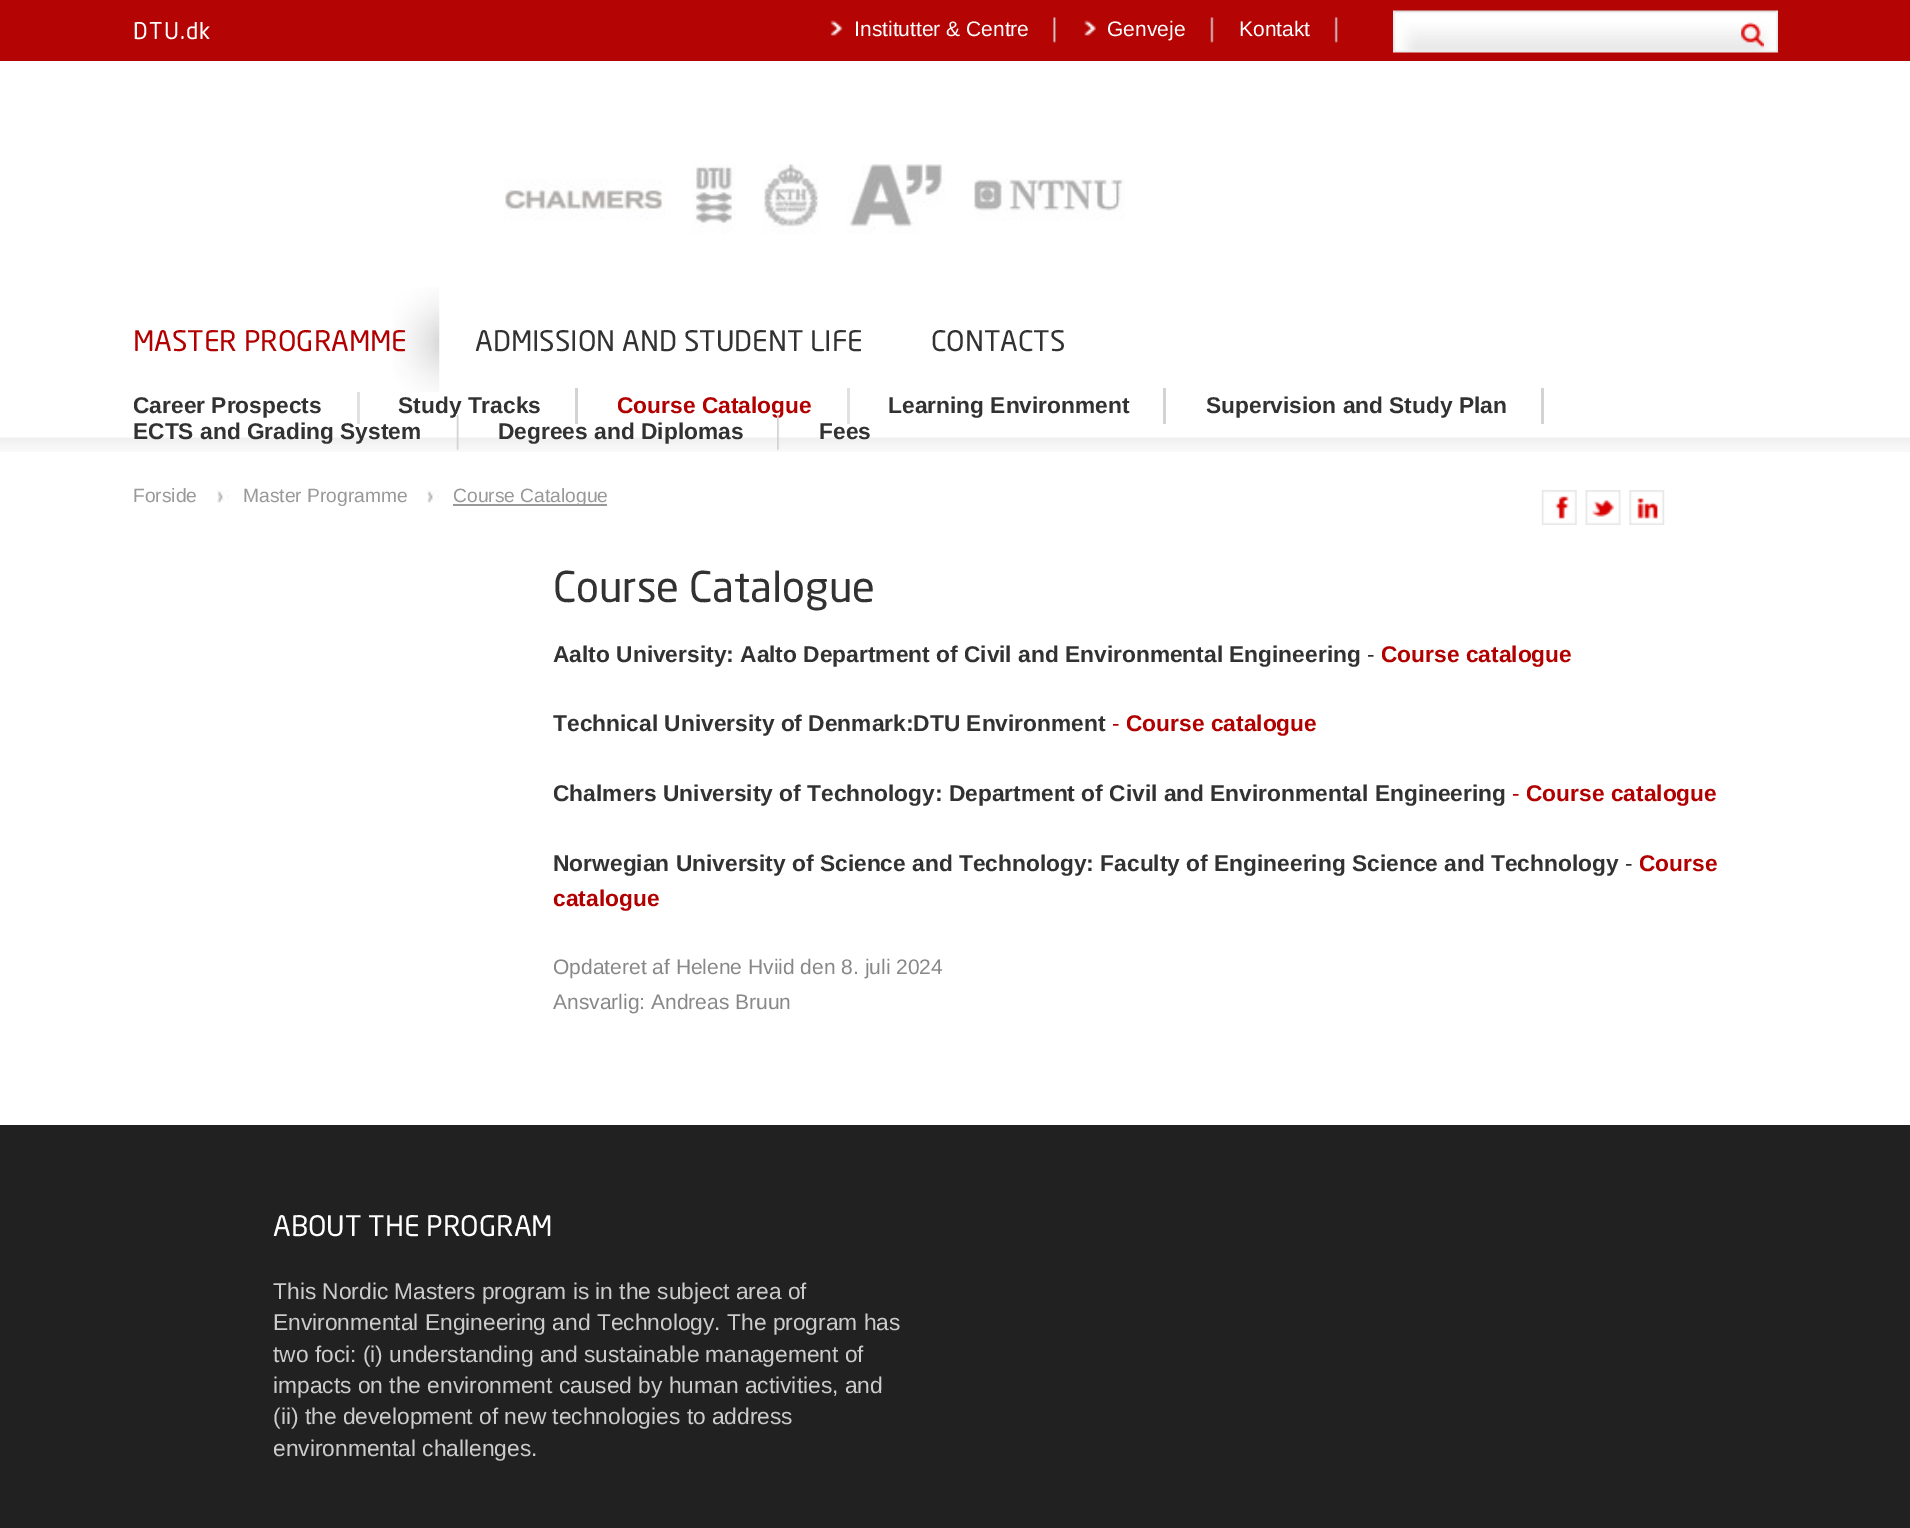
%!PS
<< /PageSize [1910 1528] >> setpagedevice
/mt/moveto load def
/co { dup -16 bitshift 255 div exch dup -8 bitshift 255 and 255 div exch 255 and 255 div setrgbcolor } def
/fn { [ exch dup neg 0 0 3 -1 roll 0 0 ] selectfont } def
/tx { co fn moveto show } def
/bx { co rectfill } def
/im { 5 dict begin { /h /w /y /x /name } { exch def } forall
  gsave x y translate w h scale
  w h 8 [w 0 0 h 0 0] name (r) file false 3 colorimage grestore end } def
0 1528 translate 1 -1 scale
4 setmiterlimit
0 0 1910 1528 16#FFFFFF bx
0 0 1910 61 16#B50404 bx
(media/1.raw) 830 20 13 16 im
(media/2.raw) 1053 17 3 26 im
(media/3.raw) 1084 20 12 16 im
(media/4.raw) 1210 17 4 26 im
(media/5.raw) 1334 17 4 26 im
(media/6.raw) 1393 10 385 43 im
(media/7.raw) 1741 22 23 26 im
(media/8.raw) 504 164 621 70 im
357 388 3 36 16#E0E1E2 bx
(media/9.raw) 357 287 83 105 im
(media/10.raw) 0 437 1910 15 im
575 388 3 36 16#D2D3D5 bx
847 388 3 36 16#E0E1E2 bx
1163 388 3 36 16#D2D3D5 bx
1541 388 3 36 16#D2D3D5 bx
(media/13.raw) 217 490 12 13 im
(media/13.raw) 427 490 12 13 im
453 504 154 2 16#999999 bx
(media/14.raw) 1541 490 36 35 im
(media/15.raw) 1585 490 36 35 im
(media/16.raw) 1629 490 36 35 im
0 1125 1910 403 16#212121 bx
/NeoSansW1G-Regular 22.75 fn
16#FFFFFF co
133 39 mt 1.25 0 (DTU.dk) ashow
(Institutter & Centre) 854 36 /LiberationSans-Regular 21 16#FFFFFF tx
(Genveje) 1107 36 /LiberationSans-Regular 21 16#FFFFFF tx
(Kontakt) 1239 36 /LiberationSans-Regular 21 16#FFFFFF tx
(MASTER PROGRAMME) 133 351 /NeoSansW1G-Regular 28 16#B20000 tx
(ADMISSION AND STUDENT LIFE) 475 351 /NeoSansW1G-Regular 28 16#323232 tx
(CONTACTS) 931 351 /NeoSansW1G-Regular 28 16#323232 tx
(Career Prospects) 133 413 /LiberationSans-Bold 22.75 16#323232 tx
(Study Tracks) 398 413 /LiberationSans-Bold 22.75 16#323232 tx
(Course Catalogue) 617 413 /LiberationSans-Bold 22.75 16#B20000 tx
(Learning Environment) 888 413 /LiberationSans-Bold 22.75 16#323232 tx
(Supervision and Study Plan) 1206 413 /LiberationSans-Bold 22.75 16#323232 tx
(ECTS and Grading System) 133 439 /LiberationSans-Bold 22.75 16#323232 tx
(media/11.raw) 456 414 3 37 im
(Degrees and Diplomas) 498 439 /LiberationSans-Bold 22.75 16#323232 tx
(media/12.raw) 777 414 3 37 im
(Fees) 819 439 /LiberationSans-Bold 22.75 16#323232 tx
(Forside) 133 502 /LiberationSans-Regular 19.25 16#999999 tx
(Master Programme) 243 502 /LiberationSans-Regular 19.25 16#999999 tx
(Course Catalogue) 453 502 /LiberationSans-Regular 19.25 16#999999 tx
(Course Catalogue) 553 602 /NeoSansW1G-Regular 42 16#323232 tx
(Aalto University: Aalto Department of Civil and Environmental Engineering) 553 662 /LiberationSans-Bold 22.75 16#323232 tx
(-) 1367 662 /LiberationSans-Regular 22.75 16#323232 tx
(Course catalogue) 1381 662 /LiberationSans-Bold 22.75 16#B20000 tx
(Technical University of Denmark:DTU Environment) 553 731 /LiberationSans-Bold 22.75 16#323232 tx
(-) 1112 731 /LiberationSans-Regular 22.75 16#B20000 tx
(Course catalogue) 1126 731 /LiberationSans-Bold 22.75 16#B20000 tx
(Chalmers University of Technology: Department of Civil and Environmental Engineering) 553 801 /LiberationSans-Bold 22.75 16#323232 tx
(-) 1512 801 /LiberationSans-Regular 22.75 16#B20000 tx
(Course catalogue) 1526 801 /LiberationSans-Bold 22.75 16#B20000 tx
(Norwegian University of Science and Technology: Faculty of Engineering Science and Technology) 553 871 /LiberationSans-Bold 22.75 16#323232 tx
(-) 1625 871 /LiberationSans-Regular 22.75 16#323232 tx
(Course) 1639 871 /LiberationSans-Bold 22.75 16#B20000 tx
(catalogue) 553 906 /LiberationSans-Bold 22.75 16#B20000 tx
(Opdateret af Helene Hviid den 8. juli 2024) 553 974 /LiberationSans-Regular 21 16#888888 tx
(Ansvarlig: Andreas Bruun) 553 1009 /LiberationSans-Regular 21 16#888888 tx
(ABOUT THE PROGRAM) 273 1236 /NeoSansW1G-Regular 28 16#FFFFFF tx
(This Nordic Masters program is in the subject area of) 273 1299 /LiberationSans-Regular 22.75 16#CCCCCC tx
(Environmental Engineering and Technology. The program has) 273 1330 /LiberationSans-Regular 22.75 16#CCCCCC tx
(two foci: \(i\) understanding and sustainable management of) 273 1362 /LiberationSans-Regular 22.75 16#CCCCCC tx
(impacts on the environment caused by human activities, and) 273 1393 /LiberationSans-Regular 22.75 16#CCCCCC tx
(\(ii\) the development of new technologies to address) 273 1424 /LiberationSans-Regular 22.75 16#CCCCCC tx
(environmental challenges.) 273 1456 /LiberationSans-Regular 22.75 16#CCCCCC tx
showpage
